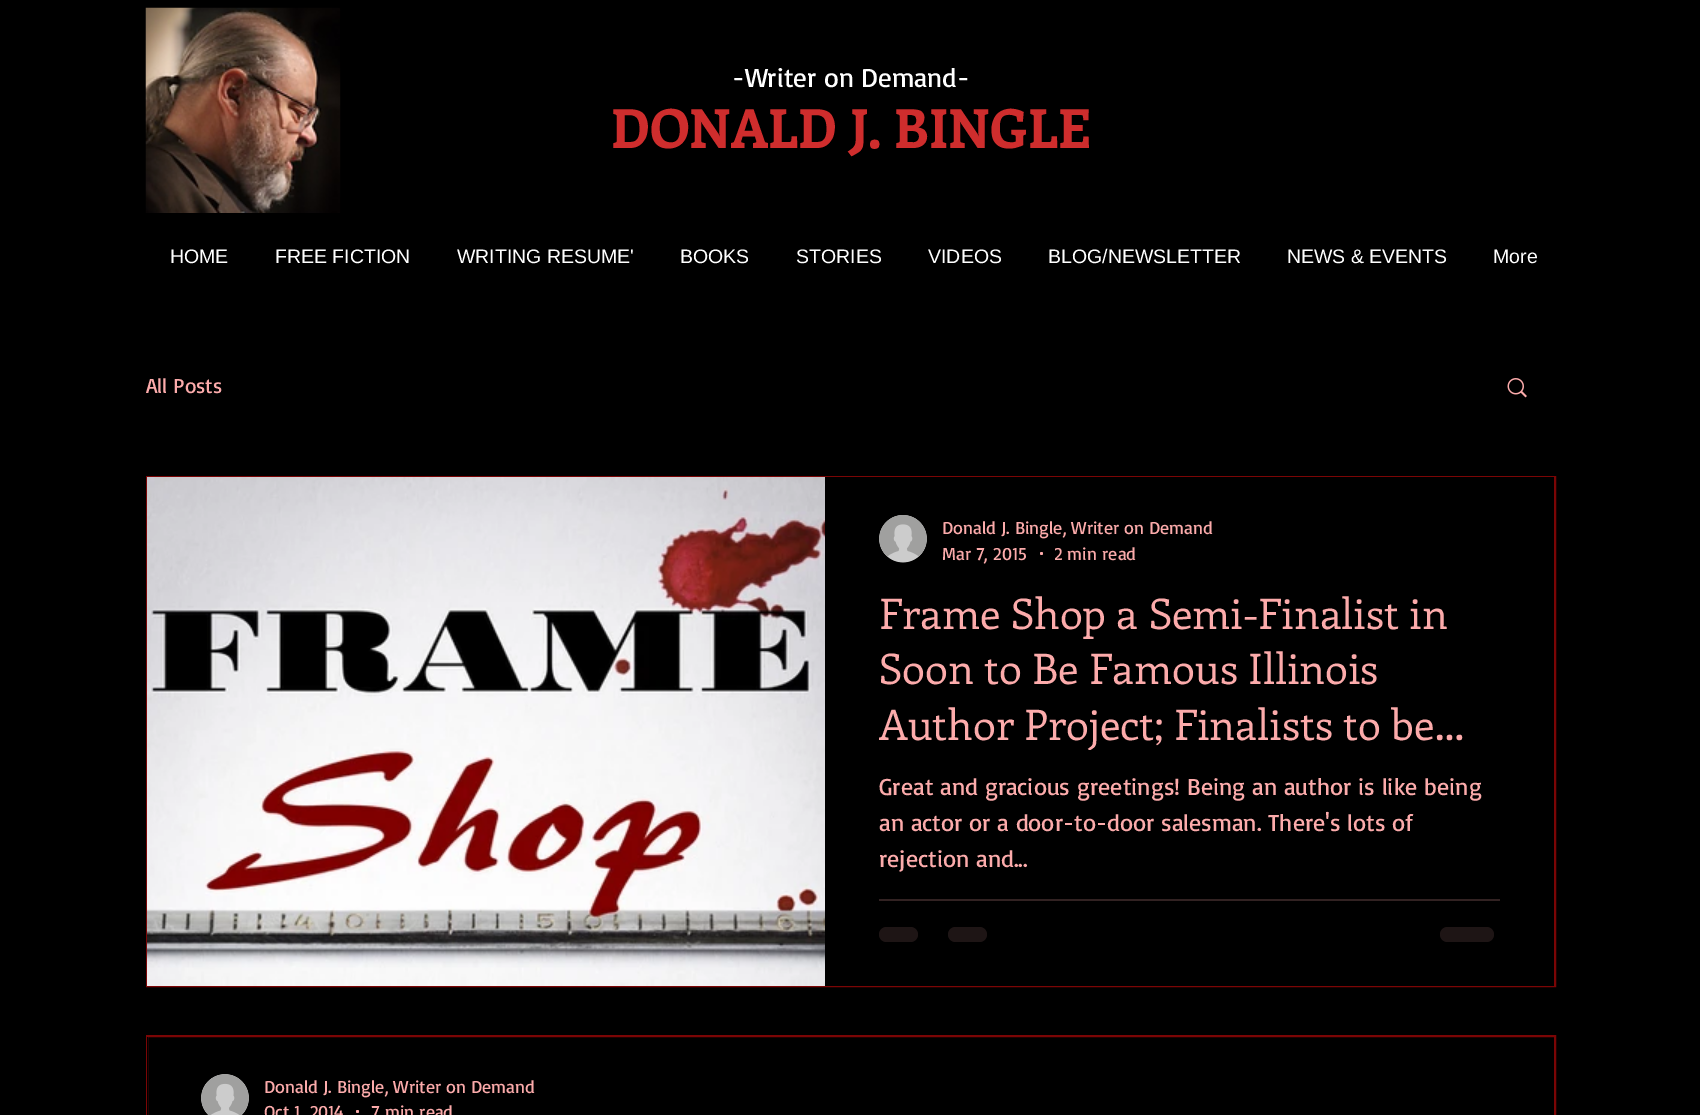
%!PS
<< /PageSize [1700 1115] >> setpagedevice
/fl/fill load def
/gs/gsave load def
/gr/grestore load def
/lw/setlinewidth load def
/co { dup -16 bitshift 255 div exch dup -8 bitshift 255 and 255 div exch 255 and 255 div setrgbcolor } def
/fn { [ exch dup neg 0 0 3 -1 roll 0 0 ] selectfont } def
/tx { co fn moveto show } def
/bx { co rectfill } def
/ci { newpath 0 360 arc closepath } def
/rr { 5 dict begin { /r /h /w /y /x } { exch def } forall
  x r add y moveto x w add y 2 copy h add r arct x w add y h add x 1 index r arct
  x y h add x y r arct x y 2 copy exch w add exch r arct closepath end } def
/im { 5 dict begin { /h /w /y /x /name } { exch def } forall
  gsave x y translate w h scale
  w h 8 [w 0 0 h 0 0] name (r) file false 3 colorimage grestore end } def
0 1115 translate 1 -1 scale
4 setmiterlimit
0 0 1700 1115 16#000000 bx
(media/1.raw) 145 7 196 206 im
(media/2.raw) 1507 378 20 20 im
16#7B0505 co
2 lw
147 477 1408 509 rectstroke
(media/3.raw) 147 477 678 509 im
825 477 729 509 16#000000 bx
(media/4.raw) 879 515 48 48 im
16#FCABAB co
1041.5 553.5 1.5 ci fl
879 899 621 2 16#322222 bx
16#1E1515 co
879 927 39 15 7.5 rr fl
948 927 39 15 7.5 rr fl
1440 927 54 15 7.5 rr fl
16#7B0505 co
147 1036 1408 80 rectstroke
147 1037 1 78 16#000000 bx
(media/5.raw) 201 1074 48 41 im
16#FCABAB co
357.5 1111.5 1.5 ci fl
(-Writer on Demand-) 732 87 /Basic-Regular 27 16#FFFFFF tx
(DONALD J. BINGLE) 611 148 /Enriqueta-Bold 54 16#CF2D2D tx
(HOME) 170 263 /LiberationSans-Regular 19.5 16#FFFFFF tx
(FREE FICTION) 275 263 /LiberationSans-Regular 19.5 16#FFFFFF tx
(WRITING RESUME') 457 263 /LiberationSans-Regular 19.5 16#FFFFFF tx
(BOOKS) 680 263 /LiberationSans-Regular 19.5 16#FFFFFF tx
(STORIES) 796 263 /LiberationSans-Regular 19.5 16#FFFFFF tx
(VIDEOS) 928 263 /LiberationSans-Regular 19.5 16#FFFFFF tx
(BLOG/NEWSLETTER) 1048 263 /LiberationSans-Regular 19.5 16#FFFFFF tx
(NEWS & EVENTS) 1287 263 /LiberationSans-Regular 19.5 16#FFFFFF tx
(More) 1493 263 /LiberationSans-Regular 19.5 16#FFFFFF tx
(All Posts) 146 393 /Basic-Regular 21 16#FCABAB tx
(Donald J. Bingle, Writer on Demand) 942 534 /Basic-Regular 18 16#FCABAB tx
(Mar 7, 2015) 942 560 /Basic-Regular 18 16#FCABAB tx
gs
1055 542 81 22 rectclip
(2 min read) 1054 560 /Basic-Regular 18 16#FCABAB tx
gr
(Frame Shop a Semi-Finalist in) 879 629 /Enriqueta-Regular 42 16#FCABAB tx
(Soon to Be Famous Illinois) 879 684 /Enriqueta-Regular 42 16#FCABAB tx
gs
879 584 621 166 rectclip
(Author Project; Finalists to be…) 879 740 /Enriqueta-Regular 42 16#FCABAB tx
gr
(Great and gracious greetings! Being an author is like being) 879 795 /Basic-Regular 24 16#FCABAB tx
(an actor or a door-to-door salesman. There's lots of) 879 831 /Basic-Regular 24 16#FCABAB tx
(rejection and...) 879 867 /Basic-Regular 24 16#FCABAB tx
(Donald J. Bingle, Writer on Demand) 264 1093 /Basic-Regular 18 16#FCABAB tx
(Oct 1, 2014) 264 1118 /Basic-Regular 18 16#FCABAB tx
(7 min read) 371 1118 /Basic-Regular 18 16#FCABAB tx
showpage
